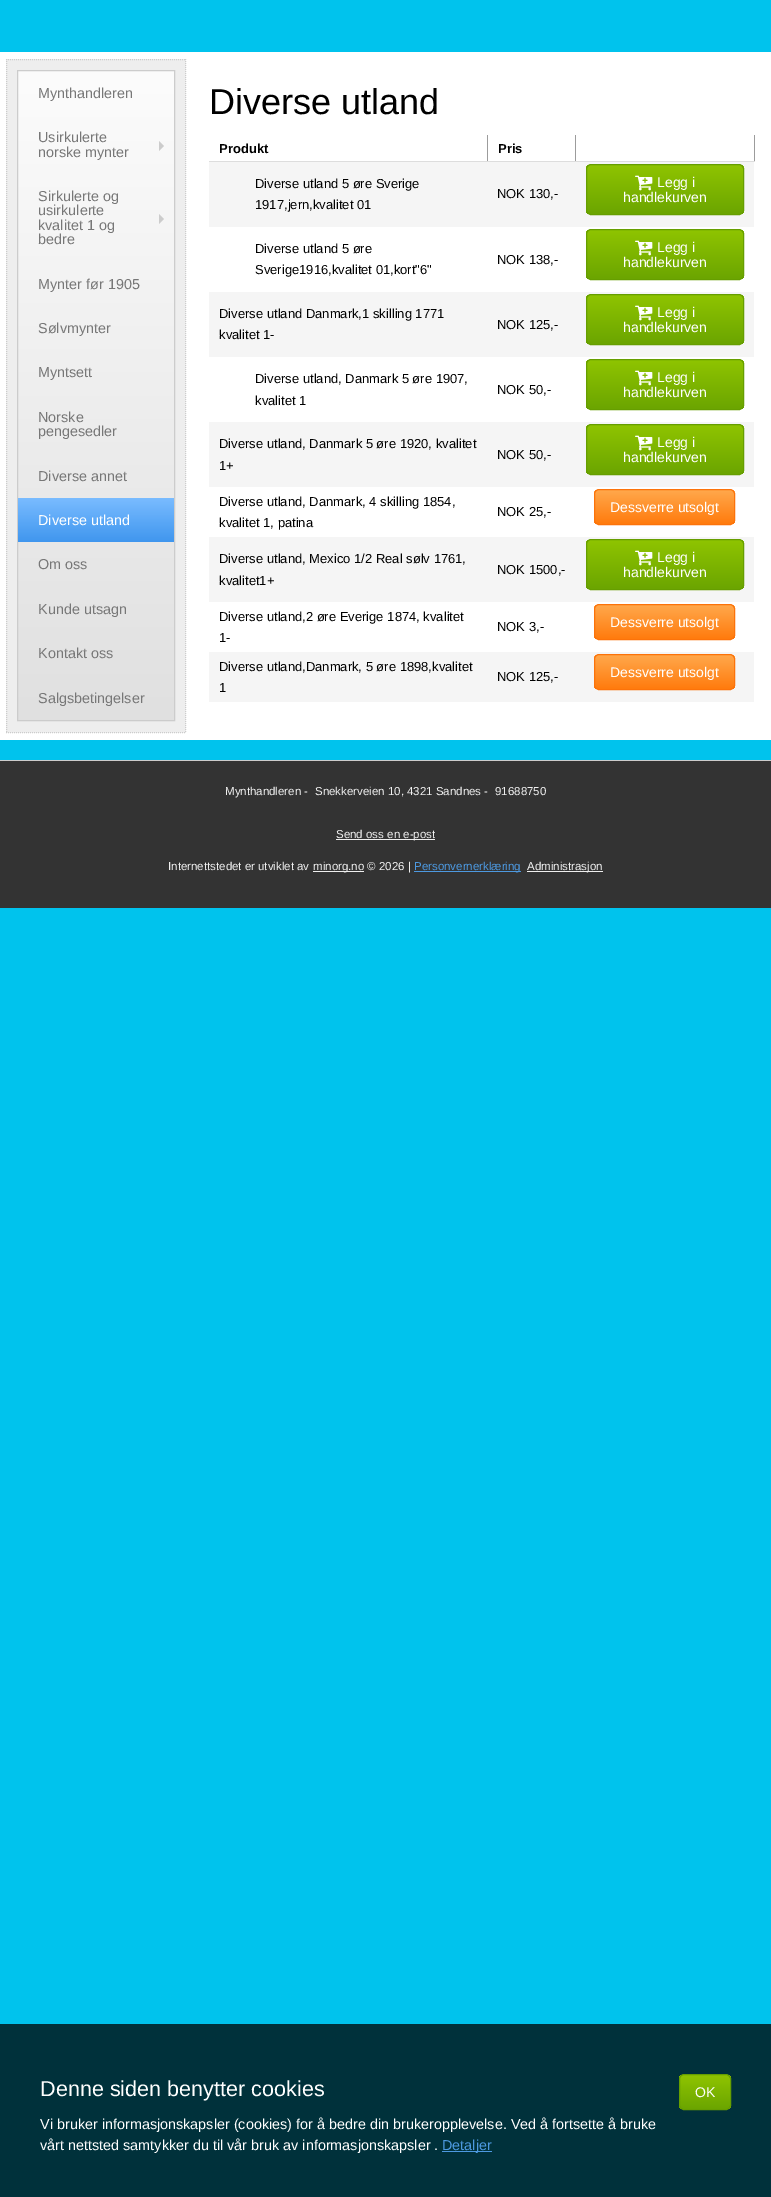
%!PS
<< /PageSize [771 2197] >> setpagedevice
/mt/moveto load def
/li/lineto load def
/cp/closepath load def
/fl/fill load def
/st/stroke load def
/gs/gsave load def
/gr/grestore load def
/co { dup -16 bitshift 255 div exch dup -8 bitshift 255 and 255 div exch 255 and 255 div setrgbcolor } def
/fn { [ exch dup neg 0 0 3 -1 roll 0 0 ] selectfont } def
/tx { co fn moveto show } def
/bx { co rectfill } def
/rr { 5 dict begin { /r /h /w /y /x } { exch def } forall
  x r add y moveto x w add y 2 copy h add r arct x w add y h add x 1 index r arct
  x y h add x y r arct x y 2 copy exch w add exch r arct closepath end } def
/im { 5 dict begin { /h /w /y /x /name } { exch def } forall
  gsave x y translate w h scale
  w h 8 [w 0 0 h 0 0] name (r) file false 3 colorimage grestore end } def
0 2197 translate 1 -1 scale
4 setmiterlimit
0 0 771 2197 16#00C3ED bx
0 52 771 688 16#FFFFFF bx
6 59 180 674 16#EEEEEE bx
16#CCCCCC co
[1 1] 0 setdash
6 59.5 mt 186 59.5 li st
185.5 59 mt 185.5 733 li st
6 732.5 mt 186 732.5 li st
6.5 59 mt 6.5 733 li st
gs 18 71 mt 174 71 li 174 720 li 18 720 li cp clip newpath
<< /ShadingType 2 /ColorSpace /DeviceRGB /Coords [96 71 96 720] /Extend [true true] /Function << /FunctionType 2 /Domain [0 1] /C0 [.988 .988 .988] /C1 [.878 .878 .878] /N 1 >> >> shfill gr
[] 0 setdash
17.5 70.5 157 650 rectstroke
159 151 mt 159 141 li 164 146 li cp fl
159 224 mt 159 214 li 164 219 li cp fl
gs 18 498 mt 174 498 li 174 542 li 18 542 li cp clip newpath
<< /ShadingType 2 /ColorSpace /DeviceRGB /Coords [96 498 96 542] /Extend [true true] /Function << /FunctionType 3 /Domain [0 1] /Functions [<< /FunctionType 2 /Domain [0 1] /C0 [.478 .737 1] /C1 [.376 .671 .973] /N 1 >> << /FunctionType 2 /Domain [0 1] /C0 [.376 .671 .973] /C1 [.251 .588 .933] /N 1 >>] /Bounds [.44] /Encode [0 1 0 1] >> >> shfill gr
754 135 1 27 16#9C9C9C bx
575 161 180 1 16#DDDDDD bx
575 135 1 27 16#9C9C9C bx
487 161 89 1 16#DDDDDD bx
487 135 1 27 16#9C9C9C bx
209 161 279 1 16#DDDDDD bx
209 162 545 65 16#F5F5F5 bx
gs
586 164 158 51 5 rr clip newpath
gs 586 165 mt 744 165 li 744 214 li 586 214 li cp clip newpath
<< /ShadingType 2 /ColorSpace /DeviceRGB /Coords [665 165 665 214] /Extend [true true] /Function << /FunctionType 2 /Domain [0 1] /C0 [.561 .769 0] /C1 [.42 .647 0] /N 1 >> >> shfill gr
gr
16#669E00 co
586.5 164.5 157 50 4.5 rr st
(media/1.raw) 635 175 18 16 im
gs
586 229 158 51 5 rr clip newpath
gs 586 230 mt 744 230 li 744 279 li 586 279 li cp clip newpath
<< /ShadingType 2 /ColorSpace /DeviceRGB /Coords [665 230 665 279] /Extend [true true] /Function << /FunctionType 2 /Domain [0 1] /C0 [.561 .769 0] /C1 [.42 .647 0] /N 1 >> >> shfill gr
gr
586.5 229.5 157 50 4.5 rr st
(media/1.raw) 635 240 18 16 im
209 292 545 65 16#F5F5F5 bx
gs
586 294 158 51 5 rr clip newpath
gs 586 295 mt 744 295 li 744 344 li 586 344 li cp clip newpath
<< /ShadingType 2 /ColorSpace /DeviceRGB /Coords [665 295 665 344] /Extend [true true] /Function << /FunctionType 2 /Domain [0 1] /C0 [.561 .769 0] /C1 [.42 .647 0] /N 1 >> >> shfill gr
gr
16#669E00 co
586.5 294.5 157 50 4.5 rr st
(media/1.raw) 635 305 18 16 im
gs
586 359 158 51 5 rr clip newpath
gs 586 360 mt 744 360 li 744 409 li 586 409 li cp clip newpath
<< /ShadingType 2 /ColorSpace /DeviceRGB /Coords [665 360 665 409] /Extend [true true] /Function << /FunctionType 2 /Domain [0 1] /C0 [.561 .769 0] /C1 [.42 .647 0] /N 1 >> >> shfill gr
gr
586.5 359.5 157 50 4.5 rr st
(media/1.raw) 635 370 18 16 im
209 422 545 65 16#F5F5F5 bx
gs
586 424 158 51 5 rr clip newpath
gs 586 425 mt 744 425 li 744 474 li 586 474 li cp clip newpath
<< /ShadingType 2 /ColorSpace /DeviceRGB /Coords [665 425 665 474] /Extend [true true] /Function << /FunctionType 2 /Domain [0 1] /C0 [.561 .769 0] /C1 [.42 .647 0] /N 1 >> >> shfill gr
gr
16#669E00 co
586.5 424.5 157 50 4.5 rr st
(media/1.raw) 635 435 18 16 im
gs
594 489 141 36 5 rr clip newpath
gs 594 490 mt 735 490 li 735 524 li 594 524 li cp clip newpath
<< /ShadingType 2 /ColorSpace /DeviceRGB /Coords [665 490 665 524] /Extend [true true] /Function << /FunctionType 2 /Domain [0 1] /C0 [1 .659 .298] /C1 [1 .482 .051] /N 1 >> >> shfill gr
gr
16#FC730A co
594.5 489.5 140 35 4.5 rr st
209 537 545 65 16#F5F5F5 bx
gs
586 539 158 51 5 rr clip newpath
gs 586 540 mt 744 540 li 744 589 li 586 589 li cp clip newpath
<< /ShadingType 2 /ColorSpace /DeviceRGB /Coords [665 540 665 589] /Extend [true true] /Function << /FunctionType 2 /Domain [0 1] /C0 [.561 .769 0] /C1 [.42 .647 0] /N 1 >> >> shfill gr
gr
16#669E00 co
586.5 539.5 157 50 4.5 rr st
(media/1.raw) 635 550 18 16 im
gs
594 604 141 36 5 rr clip newpath
gs 594 605 mt 735 605 li 735 639 li 594 639 li cp clip newpath
<< /ShadingType 2 /ColorSpace /DeviceRGB /Coords [665 605 665 639] /Extend [true true] /Function << /FunctionType 2 /Domain [0 1] /C0 [1 .659 .298] /C1 [1 .482 .051] /N 1 >> >> shfill gr
gr
16#FC730A co
594.5 604.5 140 35 4.5 rr st
209 652 545 50 16#F5F5F5 bx
gs
594 654 141 36 5 rr clip newpath
gs 594 655 mt 735 655 li 735 689 li 594 689 li cp clip newpath
<< /ShadingType 2 /ColorSpace /DeviceRGB /Coords [665 655 665 689] /Extend [true true] /Function << /FunctionType 2 /Domain [0 1] /C0 [1 .659 .298] /C1 [1 .482 .051] /N 1 >> >> shfill gr
gr
16#FC730A co
594.5 654.5 140 35 4.5 rr st
0 761 771 147 16#333333 bx
0 760 771 1 16#CCCCCC bx
336 839 99 1 16#EFEFEF bx
313 871 51 1 16#EFEFEF bx
414 871 107 1 16#4D99E0 bx
527 871 76 1 16#EFEFEF bx
0 2024 771 173 16#00313B bx
gs
679 2074 52 36 5 rr clip newpath
gs 679 2075 mt 731 2075 li 731 2109 li 679 2109 li cp clip newpath
<< /ShadingType 2 /ColorSpace /DeviceRGB /Coords [705 2075 705 2109] /Extend [true true] /Function << /FunctionType 2 /Domain [0 1] /C0 [.561 .769 0] /C1 [.42 .647 0] /N 1 >> >> shfill gr
gr
16#669E00 co
679.5 2074.5 51 35 4.5 rr st
442 2151 50 1 16#4D99E0 bx
(Mynthandleren) 38 98 /Arimo-Regular 14.4 16#777777 tx
(Usirkulerte) 38 142 /Arimo-Regular 14.4 16#777777 tx
(norske mynter) 38 157 /Arimo-Regular 14.4 16#777777 tx
(Sirkulerte og) 38 201 /Arimo-Regular 14.4 16#777777 tx
(usirkulerte) 38 215 /Arimo-Regular 14.4 16#777777 tx
(kvalitet 1 og) 38 230 /Arimo-Regular 14.4 16#777777 tx
(bedre) 38 244 /Arimo-Regular 14.4 16#777777 tx
(Mynter før 1905) 38 289 /Arimo-Regular 14.4 16#777777 tx
(Sølvmynter) 38 333 /Arimo-Regular 14.4 16#777777 tx
(Myntsett) 38 377 /Arimo-Regular 14.4 16#777777 tx
(Norske) 38 422 /Arimo-Regular 14.4 16#777777 tx
(pengesedler) 38 436 /Arimo-Regular 14.4 16#777777 tx
(Diverse annet) 38 481 /Arimo-Regular 14.4 16#777777 tx
(Diverse utland) 38 525 /Arimo-Regular 14.4 16#FFFFFF tx
(Om oss) 38 569 /Arimo-Regular 14.4 16#777777 tx
(Kunde utsagn) 38 614 /Arimo-Regular 14.4 16#777777 tx
(Kontakt oss) 38 658 /Arimo-Regular 14.4 16#777777 tx
(Salgsbetingelser) 38 703 /Arimo-Regular 14.4 16#777777 tx
(Diverse utland) 209 114 /Arimo-Regular 36 16#000000 tx
(Produkt) 219 153 /Arimo-Bold 13 16#000000 tx
(Pris) 498 153 /Arimo-Bold 13 16#000000 tx
(Diverse utland 5 øre Sverige) 255 188 /Arimo-Regular 13 16#000000 tx
(1917,jern,kvalitet 01) 255 209 /Arimo-Regular 13 16#000000 tx
(NOK 130,-) 497 198 /Arimo-Regular 13 16#000000 tx
(Legg i) 657 187 /Arimo-Regular 14 16#FFFFFF tx
(handlekurven) 623 202 /Arimo-Regular 14 16#FFFFFF tx
(Diverse utland 5 øre) 255 253 /Arimo-Regular 13 16#000000 tx
(Sverige1916,kvalitet 01,kort"6") 255 274 /Arimo-Regular 13 16#000000 tx
(NOK 138,-) 497 264 /Arimo-Regular 13 16#000000 tx
(Legg i) 657 252 /Arimo-Regular 14 16#FFFFFF tx
(handlekurven) 623 267 /Arimo-Regular 14 16#FFFFFF tx
(Diverse utland Danmark,1 skilling 1771) 219 318 /Arimo-Regular 13 16#000000 tx
(kvalitet 1-) 219 339 /Arimo-Regular 13 16#000000 tx
(NOK 125,-) 497 329 /Arimo-Regular 13 16#000000 tx
(Legg i) 657 317 /Arimo-Regular 14 16#FFFFFF tx
(handlekurven) 623 332 /Arimo-Regular 14 16#FFFFFF tx
(Diverse utland, Danmark 5 øre 1907,) 255 383 /Arimo-Regular 13 16#000000 tx
(kvalitet 1) 255 405 /Arimo-Regular 13 16#000000 tx
(NOK 50,-) 497 394 /Arimo-Regular 13 16#000000 tx
(Legg i) 657 382 /Arimo-Regular 14 16#FFFFFF tx
(handlekurven) 623 397 /Arimo-Regular 14 16#FFFFFF tx
(Diverse utland, Danmark 5 øre 1920, kvalitet) 219 448 /Arimo-Regular 13 16#000000 tx
(1+) 219 470 /Arimo-Regular 13 16#000000 tx
(NOK 50,-) 497 459 /Arimo-Regular 13 16#000000 tx
(Legg i) 657 447 /Arimo-Regular 14 16#FFFFFF tx
(handlekurven) 623 462 /Arimo-Regular 14 16#FFFFFF tx
(Diverse utland, Danmark, 4 skilling 1854,) 219 506 /Arimo-Regular 13 16#000000 tx
(kvalitet 1, patina) 219 527 /Arimo-Regular 13 16#000000 tx
(NOK 25,-) 497 516 /Arimo-Regular 13 16#000000 tx
(Dessverre utsolgt) 610 512 /Arimo-Regular 14 16#FFFFFF tx
(Diverse utland, Mexico 1/2 Real sølv 1761,) 219 563 /Arimo-Regular 13 16#000000 tx
(kvalitet1+) 219 585 /Arimo-Regular 13 16#000000 tx
(NOK 1500,-) 497 574 /Arimo-Regular 13 16#000000 tx
(Legg i) 657 562 /Arimo-Regular 14 16#FFFFFF tx
(handlekurven) 623 577 /Arimo-Regular 14 16#FFFFFF tx
(Diverse utland,2 øre Everige 1874, kvalitet) 219 621 /Arimo-Regular 13 16#000000 tx
(1-) 219 642 /Arimo-Regular 13 16#000000 tx
(NOK 3,-) 497 631 /Arimo-Regular 13 16#000000 tx
(Dessverre utsolgt) 610 627 /Arimo-Regular 14 16#FFFFFF tx
(Diverse utland,Danmark, 5 øre 1898,kvalitet) 219 671 /Arimo-Regular 13 16#000000 tx
(1) 219 692 /Arimo-Regular 13 16#000000 tx
(NOK 125,-) 497 681 /Arimo-Regular 13 16#000000 tx
(Dessverre utsolgt) 610 677 /Arimo-Regular 14 16#FFFFFF tx
(Mynthandleren -) 225 795 /Arimo-Regular 11.5 16#EFEFEF tx
(Snekkerveien 10, 4321 Sandnes -) 315 795 /Arimo-Regular 11.5 16#EFEFEF tx
(91688750) 495 795 /Arimo-Regular 11.5 16#EFEFEF tx
(Send oss en e-post) 336 838 /Arimo-Regular 11.5 16#EFEFEF tx
(Internettstedet er utviklet av) 168 870 /Arimo-Regular 11.5 16#EFEFEF tx
(minorg.no © 2026 |) 313 870 /Arimo-Regular 11.5 16#EFEFEF tx
(Personvernerklæring) 414 870 /Arimo-Regular 11.5 16#4D99E0 tx
(Administrasjon) 527 870 /Arimo-Regular 11.5 16#EFEFEF tx
(Denne siden benytter cookies) 40 2096 /Arimo-Regular 21.6 16#FFFFFF tx
(OK) 695 2097 /Arimo-Regular 14 16#FFFFFF tx
(Vi bruker informasjonskapsler \(cookies\) for å bedre din brukeropplevelse. Ved å fortsette å bruke) 40 2129 /Arimo-Regular 14.4 16#FFFFFF tx
(vårt nettsted samtykker du til vår bruk av informasjonskapsler .) 40 2150 /Arimo-Regular 14.4 16#FFFFFF tx
(Detaljer) 442 2150 /Arimo-Regular 14.4 16#4D99E0 tx
showpage
